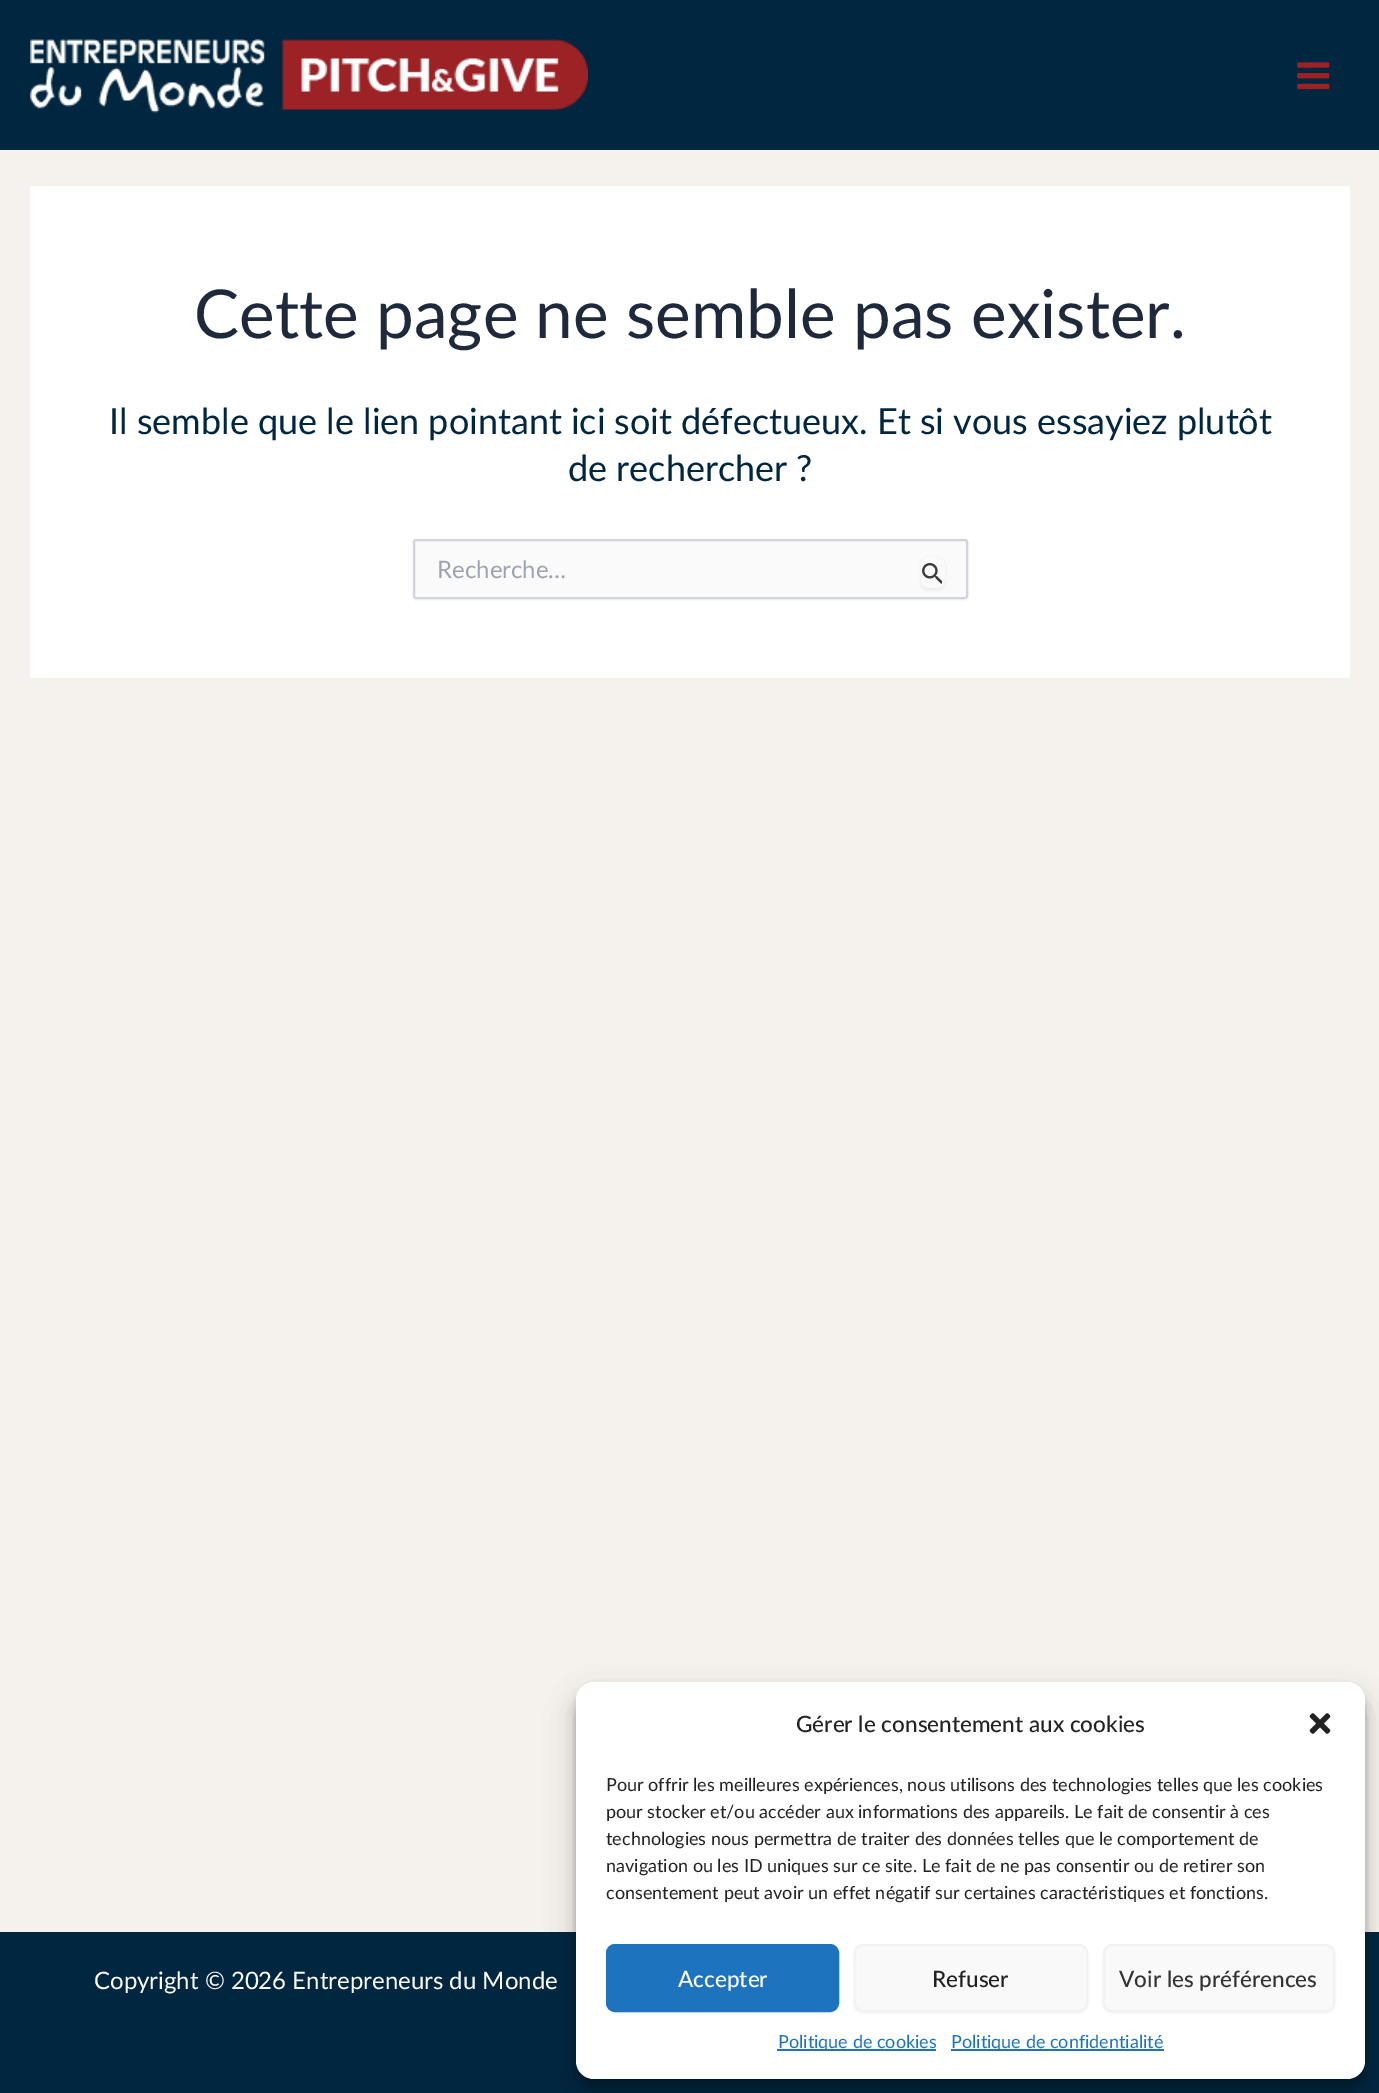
%!PS
<< /PageSize [1379 2093] /PageUsesTransparency true >> setpagedevice
/mt/moveto load def
/li/lineto load def
/ct/curveto load def
/cp/closepath load def
/fl/fill load def
/st/stroke load def
/gs/gsave load def
/gr/grestore load def
/lw/setlinewidth load def
/co { dup -16 bitshift 255 div exch dup -8 bitshift 255 and 255 div exch 255 and 255 div setrgbcolor } def
/fn { [ exch dup neg 0 0 3 -1 roll 0 0 ] selectfont } def
/tx { co fn moveto show } def
/bx { co rectfill } def
/al { dup .setfillconstantalpha .setstrokeconstantalpha } def
/rr { 5 dict begin { /r /h /w /y /x } { exch def } forall
  x r add y moveto x w add y 2 copy h add r arct x w add y h add x 1 index r arct
  x y h add x y r arct x y 2 copy exch w add exch r arct closepath end } def
/sh { 12 dict begin { /a /b /q /h /w /y /x } { exch def } forall gsave /was 0 def
  9 -2 -9 { dup b mul 4 div /e exch def 1 sub .425 mul 2.718 exch exp 1 add a .99 .min exch div /now exch def
    1 1 now sub 1 was sub div sub al /was now def
    w h .min e 2 mul add 0 gt { x e sub y e sub w e 2 mul add h e 2 mul add
      q e add b .6 mul add w h .min 2 div e add .min 0 .max rr fill } if } for grestore end } def
/im { 5 dict begin { /h /w /y /x /name } { exch def } forall
  gsave x y translate w h scale
  w h 8 [w 0 0 h 0 0] name (r) file false 3 colorimage grestore end } def
0 .pushpdf14devicefilter
0 2093 translate 1 -1 scale
4 setmiterlimit
0 0 1379 2093 16#F5F1EC bx
0 0 1379 150 16#01263F bx
(media/1.raw) 30 39 558 74 im
(media/2.raw) 1297 62 33 28 im
30 186 1320 492 16#FFFFFF bx
16#000000 co
413 540 555 60 3 1.5 .05 sh
16#FAFAFA co
414 540 553 58 2 rr gs fl gr
16#D1D5DB co
2 lw
st
gs
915 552 mt 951 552 li 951 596 li 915 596 li cp 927 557 mt 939 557 li 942.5 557 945 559.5 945 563 ct 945 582 li 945 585.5 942.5 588 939 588 ct 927 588 li 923.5 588 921 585.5 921 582 ct 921 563 li 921 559.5 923.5 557 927 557 ct cp eoclip newpath
16#000000 co
921 558 24 32 6 1.5 .05 sh
gr
(media/3.raw) 922 563 20 21 im
0 1932 1379 161 16#01263F bx
16#000000 co
576 1691 789 397 18 4.5 .23 sh
576 1697 789 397 18 15 .19 sh
16#FFFFFF co
576 1682 789 397 18 rr fl
(media/4.raw) 1309 1713 22 21 im
16#000000 co
606 1946 233 67 9 1.5 .05 sh
16#1E73BE co
607 1945 231 66 8 rr gs fl gr
st
16#000000 co
854 1946 234 67 9 1.5 .05 sh
16#F9F9F9 co
855 1945 232 66 8 rr gs fl gr
16#F2F2F2 co
st
16#000000 co
1103 1946 232 67 9 1.5 .05 sh
16#F9F9F9 co
1104 1945 230 66 8 rr gs fl gr
16#F2F2F2 co
st
777 2049 159 2 16#1E73BE bx
951 2049 213 2 16#1E73BE bx
(Cette page ne semble pas exister.) 194 338 /Lato-Regular 67.5 16#1E293B tx
(Il semble que le lien pointant ici soit défectueux. Et si vous essayiez plutôt) 109 434 /Lato-Regular 36 16#01263F tx
(de rechercher ?) 568 481 /Lato-Regular 36 16#01263F tx
(Recherche…) 437 578 /Lato-Regular 24 16#9CA3AF tx
(Copyright © 2026 Entrepreneurs du Monde) 94 1989 /Lato-Regular 24 16#FFFFFF tx
(Gérer le consentement aux cookies) 796 1732 /Lato-Medium 22.5 16#222222 tx
(Pour offrir les meilleures expériences, nous utilisons des technologies telles que les cookies) 606 1791 /Lato-Regular 18 16#222222 tx
(pour stocker et/ou accéder aux informations des appareils. Le fait de consentir à ces) 606 1818 /Lato-Regular 18 16#222222 tx
(technologies nous permettra de traiter des données telles que le comportement de) 606 1845 /Lato-Regular 18 16#222222 tx
(navigation ou les ID uniques sur ce site. Le fait de ne pas consentir ou de retirer son) 606 1872 /Lato-Regular 18 16#222222 tx
(consentement peut avoir un effet négatif sur certaines caractéristiques et fonctions.) 606 1899 /Lato-Regular 18 16#222222 tx
(Accepter) 678 1987 /Lato-Medium 22.5 16#FFFFFF tx
(Refuser) 932 1987 /Lato-Medium 22.5 16#222222 tx
(Voir les préférences) 1119 1987 /Lato-Medium 22.5 16#333333 tx
(Politique de cookies) 778 2048 /Lato-Regular 18 16#1E73BE tx
(Politique de confidentialité) 951 2048 /Lato-Regular 18 16#1E73BE tx
.poppdf14devicefilter showpage
